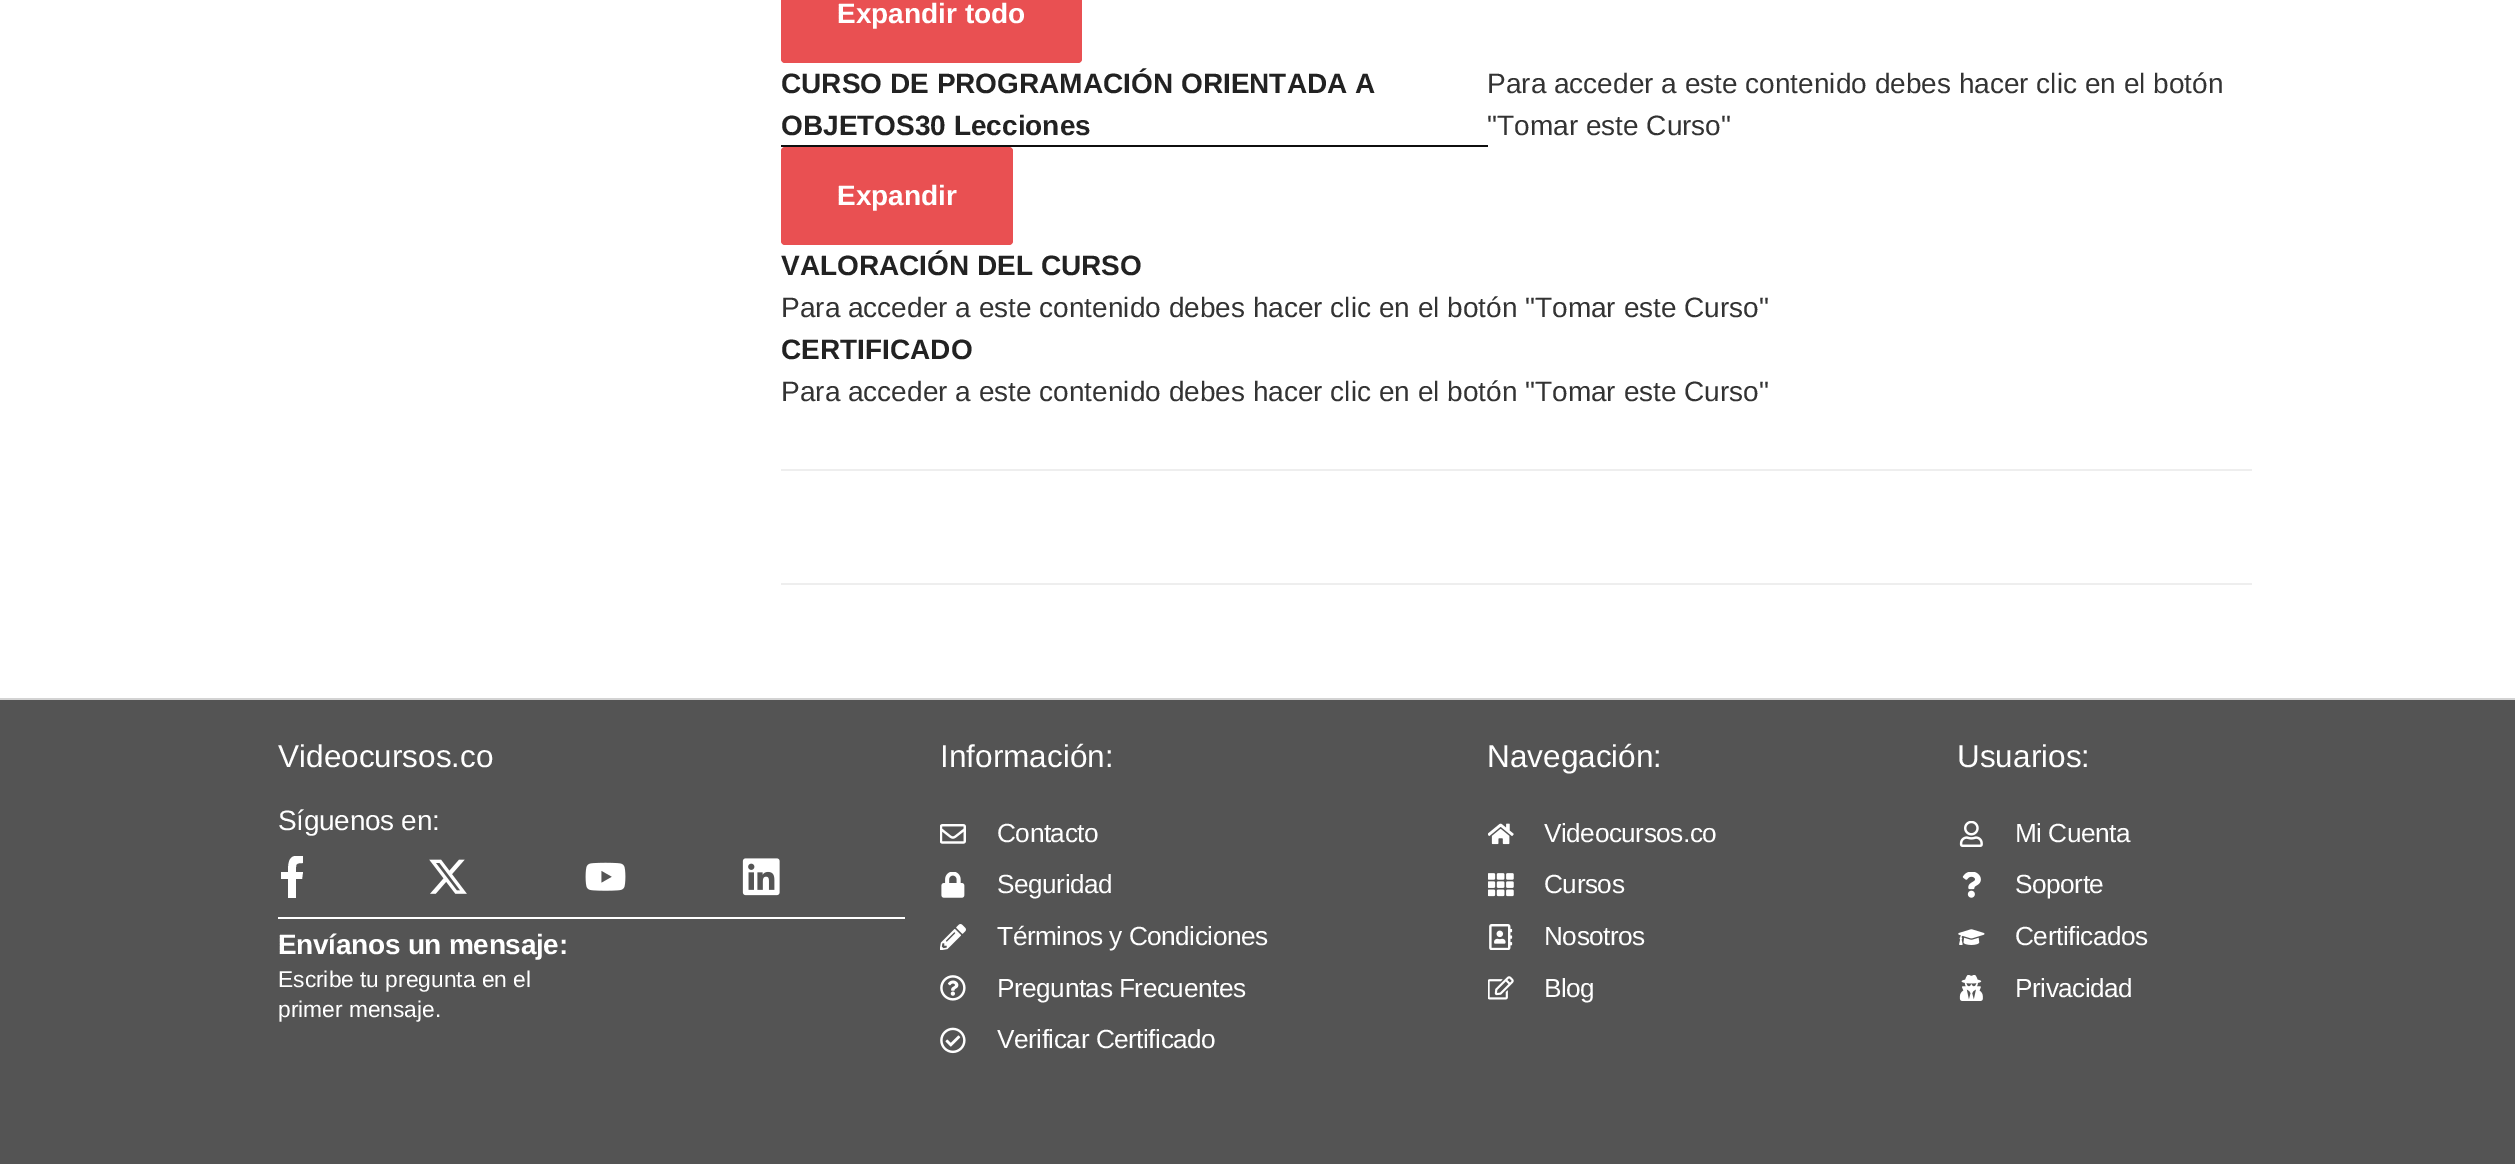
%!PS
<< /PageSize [2515 1164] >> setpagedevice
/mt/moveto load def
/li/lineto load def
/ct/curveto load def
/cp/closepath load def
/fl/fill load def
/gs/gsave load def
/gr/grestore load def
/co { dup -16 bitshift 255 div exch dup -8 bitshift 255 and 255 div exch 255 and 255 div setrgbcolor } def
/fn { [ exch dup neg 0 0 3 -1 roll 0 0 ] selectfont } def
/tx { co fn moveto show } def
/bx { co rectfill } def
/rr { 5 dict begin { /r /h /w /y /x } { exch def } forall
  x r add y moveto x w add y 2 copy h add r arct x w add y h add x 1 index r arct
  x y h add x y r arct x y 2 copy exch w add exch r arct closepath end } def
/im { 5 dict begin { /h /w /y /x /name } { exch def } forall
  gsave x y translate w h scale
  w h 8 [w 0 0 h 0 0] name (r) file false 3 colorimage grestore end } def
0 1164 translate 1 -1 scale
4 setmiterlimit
0 0 2515 1164 16#FFFFFF bx
16#E95052 co
781 -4 301 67 4 rr fl
781 145 707 2 16#0F0F0F bx
16#E95052 co
781 147 232 98 4 rr fl
781 469 1471 2 16#EEEEEE bx
781 583 1471 2 16#EEEEEE bx
0 700 2515 464 16#545454 bx
0 698 2515 2 16#D3D3D3 bx
gs
271 856 42 42 rectclip
16#FFFFFF co
302 879 mt 303 872 li 296 872 li 296 864 295 863 303 863 ct 303 856 li 290 854 288 859 288 872 ct 281 872 li 281 879 li 288 879 li 288 898 li 296 898 li 296 879 li cp fl
gr
(media/1.raw) 429 859 38 35 im
(media/2.raw) 585 862 41 29 im
(media/3.raw) 742 858 38 38 im
278 917 627 2 16#FFFFFF bx
(media/4.raw) 940 824 26 20 im
(media/5.raw) 941 872 24 26 im
(media/6.raw) 940 924 26 26 im
(media/7.raw) 940 975 26 26 im
(media/8.raw) 940 1027 26 27 im
(media/9.raw) 1488 823 26 22 im
(media/10.raw) 1488 873 26 24 im
(media/11.raw) 1489 924 24 26 im
(media/12.raw) 1488 976 26 24 im
(media/13.raw) 1959 821 24 26 im
(media/14.raw) 1962 872 19 26 im
(media/15.raw) 1958 929 27 16 im
(media/16.raw) 1959 975 24 26 im
(Expandir todo) 837 23 /LiberationSans-Bold 28 16#FFFFFF tx
(CURSO DE PROGRAMACIÓN ORIENTADA A) 781 93 /LiberationSans-Bold 28 16#222222 tx
(OBJETOS30 Lecciones) 781 135 /LiberationSans-Bold 28 16#222222 tx
(Para acceder a este contenido debes hacer clic en el botón) 1487 93 /LiberationSans-Regular 28 16#333333 tx
("Tomar este Curso") 1487 135 /LiberationSans-Regular 28 16#333333 tx
(Expandir) 837 205 /LiberationSans-Bold 28 16#FFFFFF tx
(VALORACIÓN DEL CURSO) 781 275 /LiberationSans-Bold 28 16#222222 tx
(Para acceder a este contenido debes hacer clic en el botón "Tomar este Curso") 781 317 /LiberationSans-Regular 28 16#333333 tx
(CERTIFICADO) 781 359 /LiberationSans-Bold 28 16#222222 tx
(Para acceder a este contenido debes hacer clic en el botón "Tomar este Curso") 781 401 /LiberationSans-Regular 28 16#333333 tx
(Videocursos.co) 278 767 /LiberationSans-Regular 31.5 16#FFFFFF tx
/LiberationSans-Regular 28 fn
278 830 mt -.3 0 (Síguenos en:) ashow
/LiberationSans-Bold 28 fn
278 954 mt -.3 0 (Envíanos un mensaje:) ashow
(Escribe tu pregunta en el) 278 987 /LiberationSans-Regular 22.75 16#FFFFFF tx
(primer mensaje.) 278 1017 /LiberationSans-Regular 22.75 16#FFFFFF tx
(Información:) 940 767 /LiberationSans-Regular 31.5 16#FFFFFF tx
/LiberationSans-Regular 26.25 fn
997 842 mt -.5 0 (Contacto) ashow
997 893 mt -.5 0 (Seguridad) ashow
997 945 mt -.5 0 (Términos y Condiciones) ashow
997 997 mt -.5 0 (Preguntas Frecuentes) ashow
997 1048 mt -.5 0 (Verificar Certificado) ashow
(Navegación:) 1487 767 /LiberationSans-Regular 31.5 16#FFFFFF tx
/LiberationSans-Regular 26.25 fn
1544 842 mt -.5 0 (Videocursos.co) ashow
1544 893 mt -.5 0 (Cursos) ashow
1544 945 mt -.5 0 (Nosotros) ashow
1544 997 mt -.5 0 (Blog) ashow
(Usuarios:) 1957 767 /LiberationSans-Regular 31.5 16#FFFFFF tx
/LiberationSans-Regular 26.25 fn
2015 842 mt -.5 0 (Mi Cuenta) ashow
2015 893 mt -.5 0 (Soporte) ashow
2015 945 mt -.5 0 (Certificados) ashow
2015 997 mt -.5 0 (Privacidad) ashow
showpage
